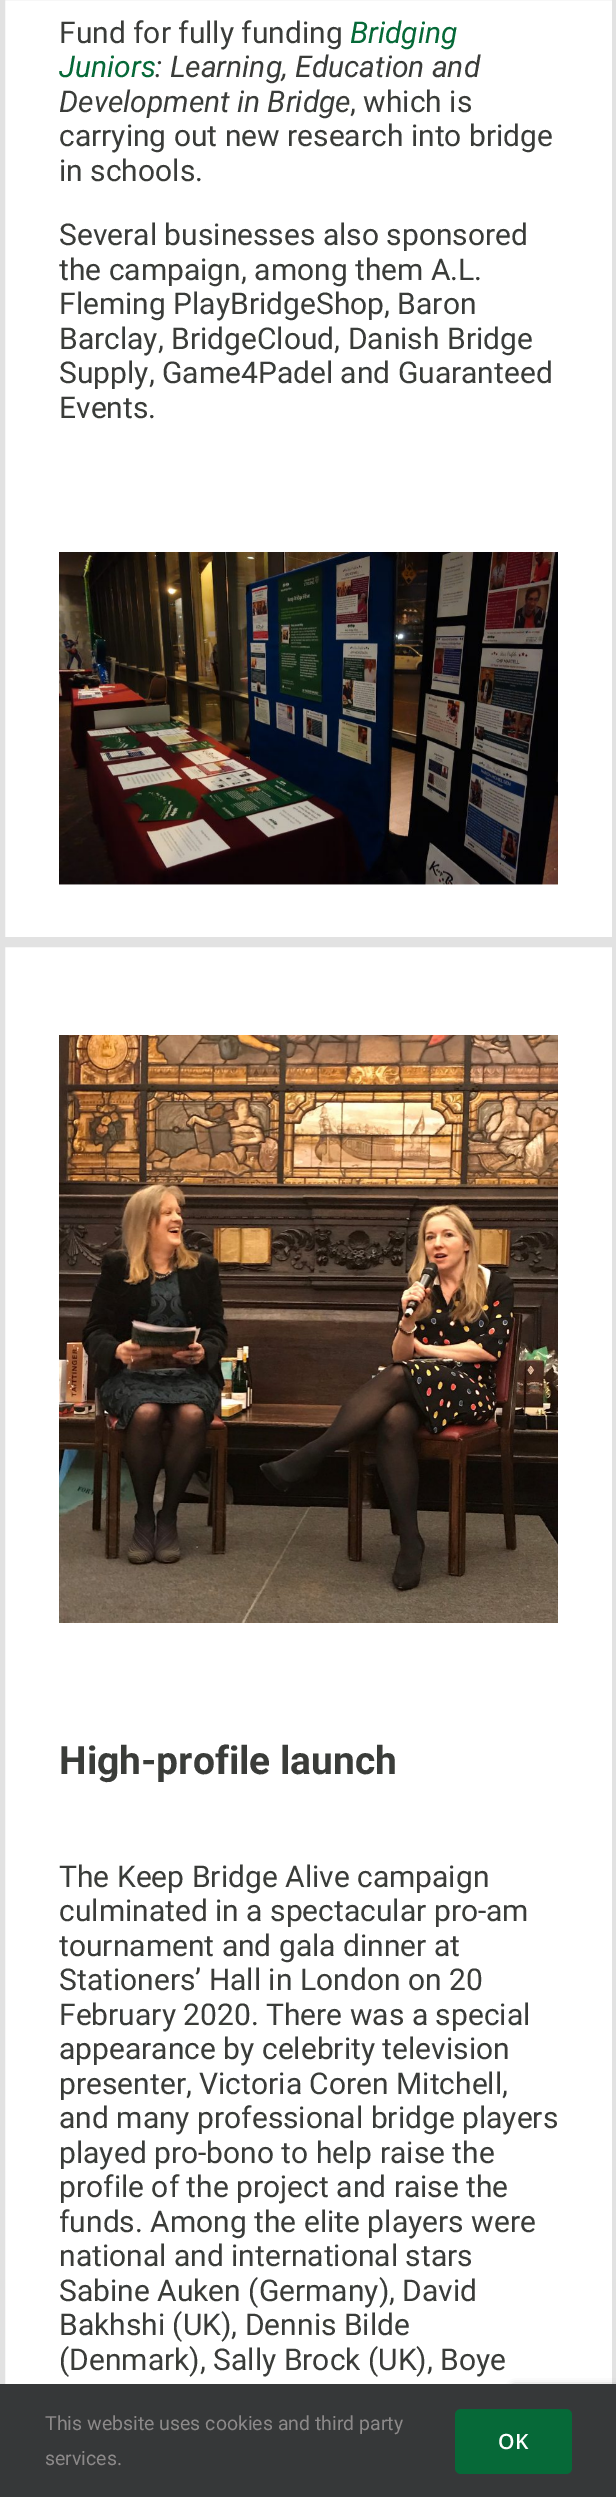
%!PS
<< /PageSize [616 2497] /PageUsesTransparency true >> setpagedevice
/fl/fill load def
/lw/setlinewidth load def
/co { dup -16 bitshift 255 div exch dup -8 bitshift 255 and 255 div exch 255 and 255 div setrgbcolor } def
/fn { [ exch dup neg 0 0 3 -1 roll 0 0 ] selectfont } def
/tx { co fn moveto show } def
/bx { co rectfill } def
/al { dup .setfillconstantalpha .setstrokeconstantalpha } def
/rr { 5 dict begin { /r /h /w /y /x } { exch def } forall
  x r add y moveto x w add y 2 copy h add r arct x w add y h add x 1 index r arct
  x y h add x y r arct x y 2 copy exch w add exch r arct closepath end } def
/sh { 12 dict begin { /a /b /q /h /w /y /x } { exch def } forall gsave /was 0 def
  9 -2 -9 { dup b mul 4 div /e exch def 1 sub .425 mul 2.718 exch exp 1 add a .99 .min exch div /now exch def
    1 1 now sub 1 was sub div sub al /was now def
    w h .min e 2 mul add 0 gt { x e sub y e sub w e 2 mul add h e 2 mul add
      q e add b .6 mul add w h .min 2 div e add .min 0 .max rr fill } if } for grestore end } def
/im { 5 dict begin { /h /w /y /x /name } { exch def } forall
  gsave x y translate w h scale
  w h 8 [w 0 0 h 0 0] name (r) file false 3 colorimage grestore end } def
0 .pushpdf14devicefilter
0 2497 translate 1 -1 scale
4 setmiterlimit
0 0 616 2497 16#FFFFFF bx
16#E2E2E2 co
5 lw
2.5 -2.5 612 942 rectstroke
(media/1.raw) 59 552 499 333 im
2.5 944.5 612 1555 rectstroke
(media/2.raw) 59 1035 499 588 im
16#808080 co
512 2387 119 90 3 4 1 sh
0 2384 616 113 16#363839 bx
16#066938 co
455 2409 117 65 6 rr fl
(Fund for fully funding) 59 43 /Roboto-Regular 30 16#3A3C39 tx
(Bridging) 350 43 /Roboto-Italic 30 16#066938 tx
(Juniors) 59 77 /Roboto-Italic 30 16#066938 tx
(: Learning, Education and) 155 77 /Roboto-Italic 30 16#3A3C39 tx
(Development in Bridge) 59 112 /Roboto-Italic 30 16#3A3C39 tx
(, which is) 350 112 /Roboto-Regular 30 16#3A3C39 tx
(carrying out new research into bridge) 59 146 /Roboto-Regular 30 16#3A3C39 tx
(in schools.) 59 181 /Roboto-Regular 30 16#3A3C39 tx
(Several businesses also sponsored) 59 245 /Roboto-Regular 30 16#3A3C39 tx
(the campaign, among them A.L.) 59 280 /Roboto-Regular 30 16#3A3C39 tx
(Fleming PlayBridgeShop, Baron) 59 314 /Roboto-Regular 30 16#3A3C39 tx
(Barclay, BridgeCloud, Danish Bridge) 59 349 /Roboto-Regular 30 16#3A3C39 tx
(Supply, Game4Padel and Guaranteed) 59 383 /Roboto-Regular 30 16#3A3C39 tx
(Events.) 59 418 /Roboto-Regular 30 16#3A3C39 tx
(High-profile launch) 59 1774 /Roboto-Bold 39 16#3A3C39 tx
(The Keep Bridge Alive campaign) 59 1887 /Roboto-Regular 30 16#3A3C39 tx
(culminated in a spectacular pro-am) 59 1921 /Roboto-Regular 30 16#3A3C39 tx
(tournament and gala dinner at) 59 1956 /Roboto-Regular 30 16#3A3C39 tx
(Stationers’ Hall in London on 20) 59 1990 /Roboto-Regular 30 16#3A3C39 tx
(February 2020. There was a special) 59 2025 /Roboto-Regular 30 16#3A3C39 tx
(appearance by celebrity television) 59 2059 /Roboto-Regular 30 16#3A3C39 tx
(presenter, Victoria Coren Mitchell,) 59 2094 /Roboto-Regular 30 16#3A3C39 tx
(and many professional bridge players) 59 2128 /Roboto-Regular 30 16#3A3C39 tx
(played pro-bono to help raise the) 59 2163 /Roboto-Regular 30 16#3A3C39 tx
(profile of the project and raise the) 59 2197 /Roboto-Regular 30 16#3A3C39 tx
(funds. Among the elite players were) 59 2232 /Roboto-Regular 30 16#3A3C39 tx
(national and international stars) 59 2266 /Roboto-Regular 30 16#3A3C39 tx
(Sabine Auken \(Germany\), David) 59 2301 /Roboto-Regular 30 16#3A3C39 tx
(Bakhshi \(UK\), Dennis Bilde) 59 2335 /Roboto-Regular 30 16#3A3C39 tx
(\(Denmark\), Sally Brock \(UK\), Boye) 59 2370 /Roboto-Regular 30 16#3A3C39 tx
(This website uses cookies and third party) 45 2430 /Roboto-Regular 19.5 16#8C8989 tx
(services.) 45 2465 /Roboto-Regular 19.5 16#8C8989 tx
(OK) 498 2449 /OpenSans-SemiBold 21 16#FFFFFF tx
.poppdf14devicefilter showpage
